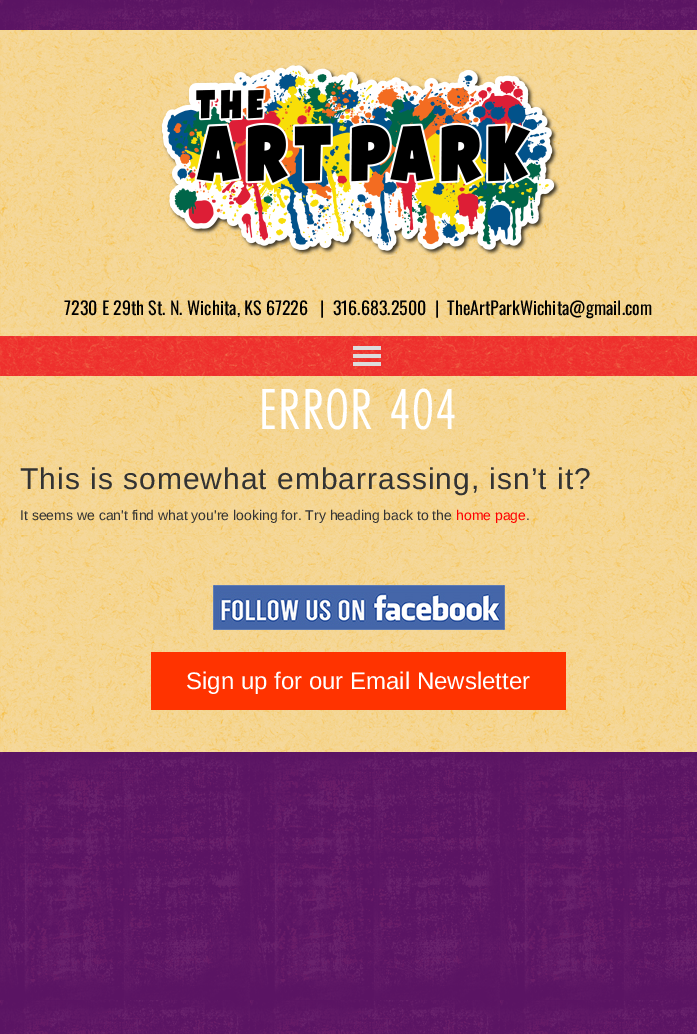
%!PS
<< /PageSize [697 1034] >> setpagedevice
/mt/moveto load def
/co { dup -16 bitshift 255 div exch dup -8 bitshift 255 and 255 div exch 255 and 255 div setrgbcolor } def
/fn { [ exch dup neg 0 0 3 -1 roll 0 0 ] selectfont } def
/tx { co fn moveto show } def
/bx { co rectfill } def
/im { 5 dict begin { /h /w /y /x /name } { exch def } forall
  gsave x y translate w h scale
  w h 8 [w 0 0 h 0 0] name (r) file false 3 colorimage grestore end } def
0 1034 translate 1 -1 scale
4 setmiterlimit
0 0 697 1034 16#FFFFFF bx
(media/1.raw) 0 0 697 1034 im
0 30 697 306 16#F4DEB2 bx
(media/2.raw) 0 30 697 306 im
(media/3.raw) 161 65 398 190 im
0 336 697 40 16#ED1C24 bx
(media/4.raw) 0 336 697 40 im
(media/5.raw) 353 346 28 20 im
0 376 697 376 16#F4DEB2 bx
(media/6.raw) 0 376 697 159 im
(media/7.raw) 0 535 697 217 im
(media/8.raw) 213 585 292 45 im
151 652 415 58 16#FF3300 bx
(7230 E 29th St. N. Wichita, KS 67226   |  316.683.2500  |  TheArtParkWichita@gmail.com) 64 315 /Oswald-Regular 18 16#000000 tx
/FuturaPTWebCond-Regular 60 fn
16#FFFFFF co
259 429 mt 1 0 (ERROR 404) ashow
/LiberationSans-Regular 30 fn
16#333333 co
20 489 mt 1 0 (This is somewhat embarrassing, isn’t it?) ashow
(It seems we can't find what you're looking for. Try heading back to the) 20 520 /LiberationSans-Regular 14 16#333333 tx
(home page) 456 520 /LiberationSans-Regular 14 16#FF0000 tx
(.) 526 520 /LiberationSans-Regular 14 16#333333 tx
(Sign up for our Email Newsletter) 186 689 /LiberationSans-Regular 24 16#FFFFFF tx
showpage
